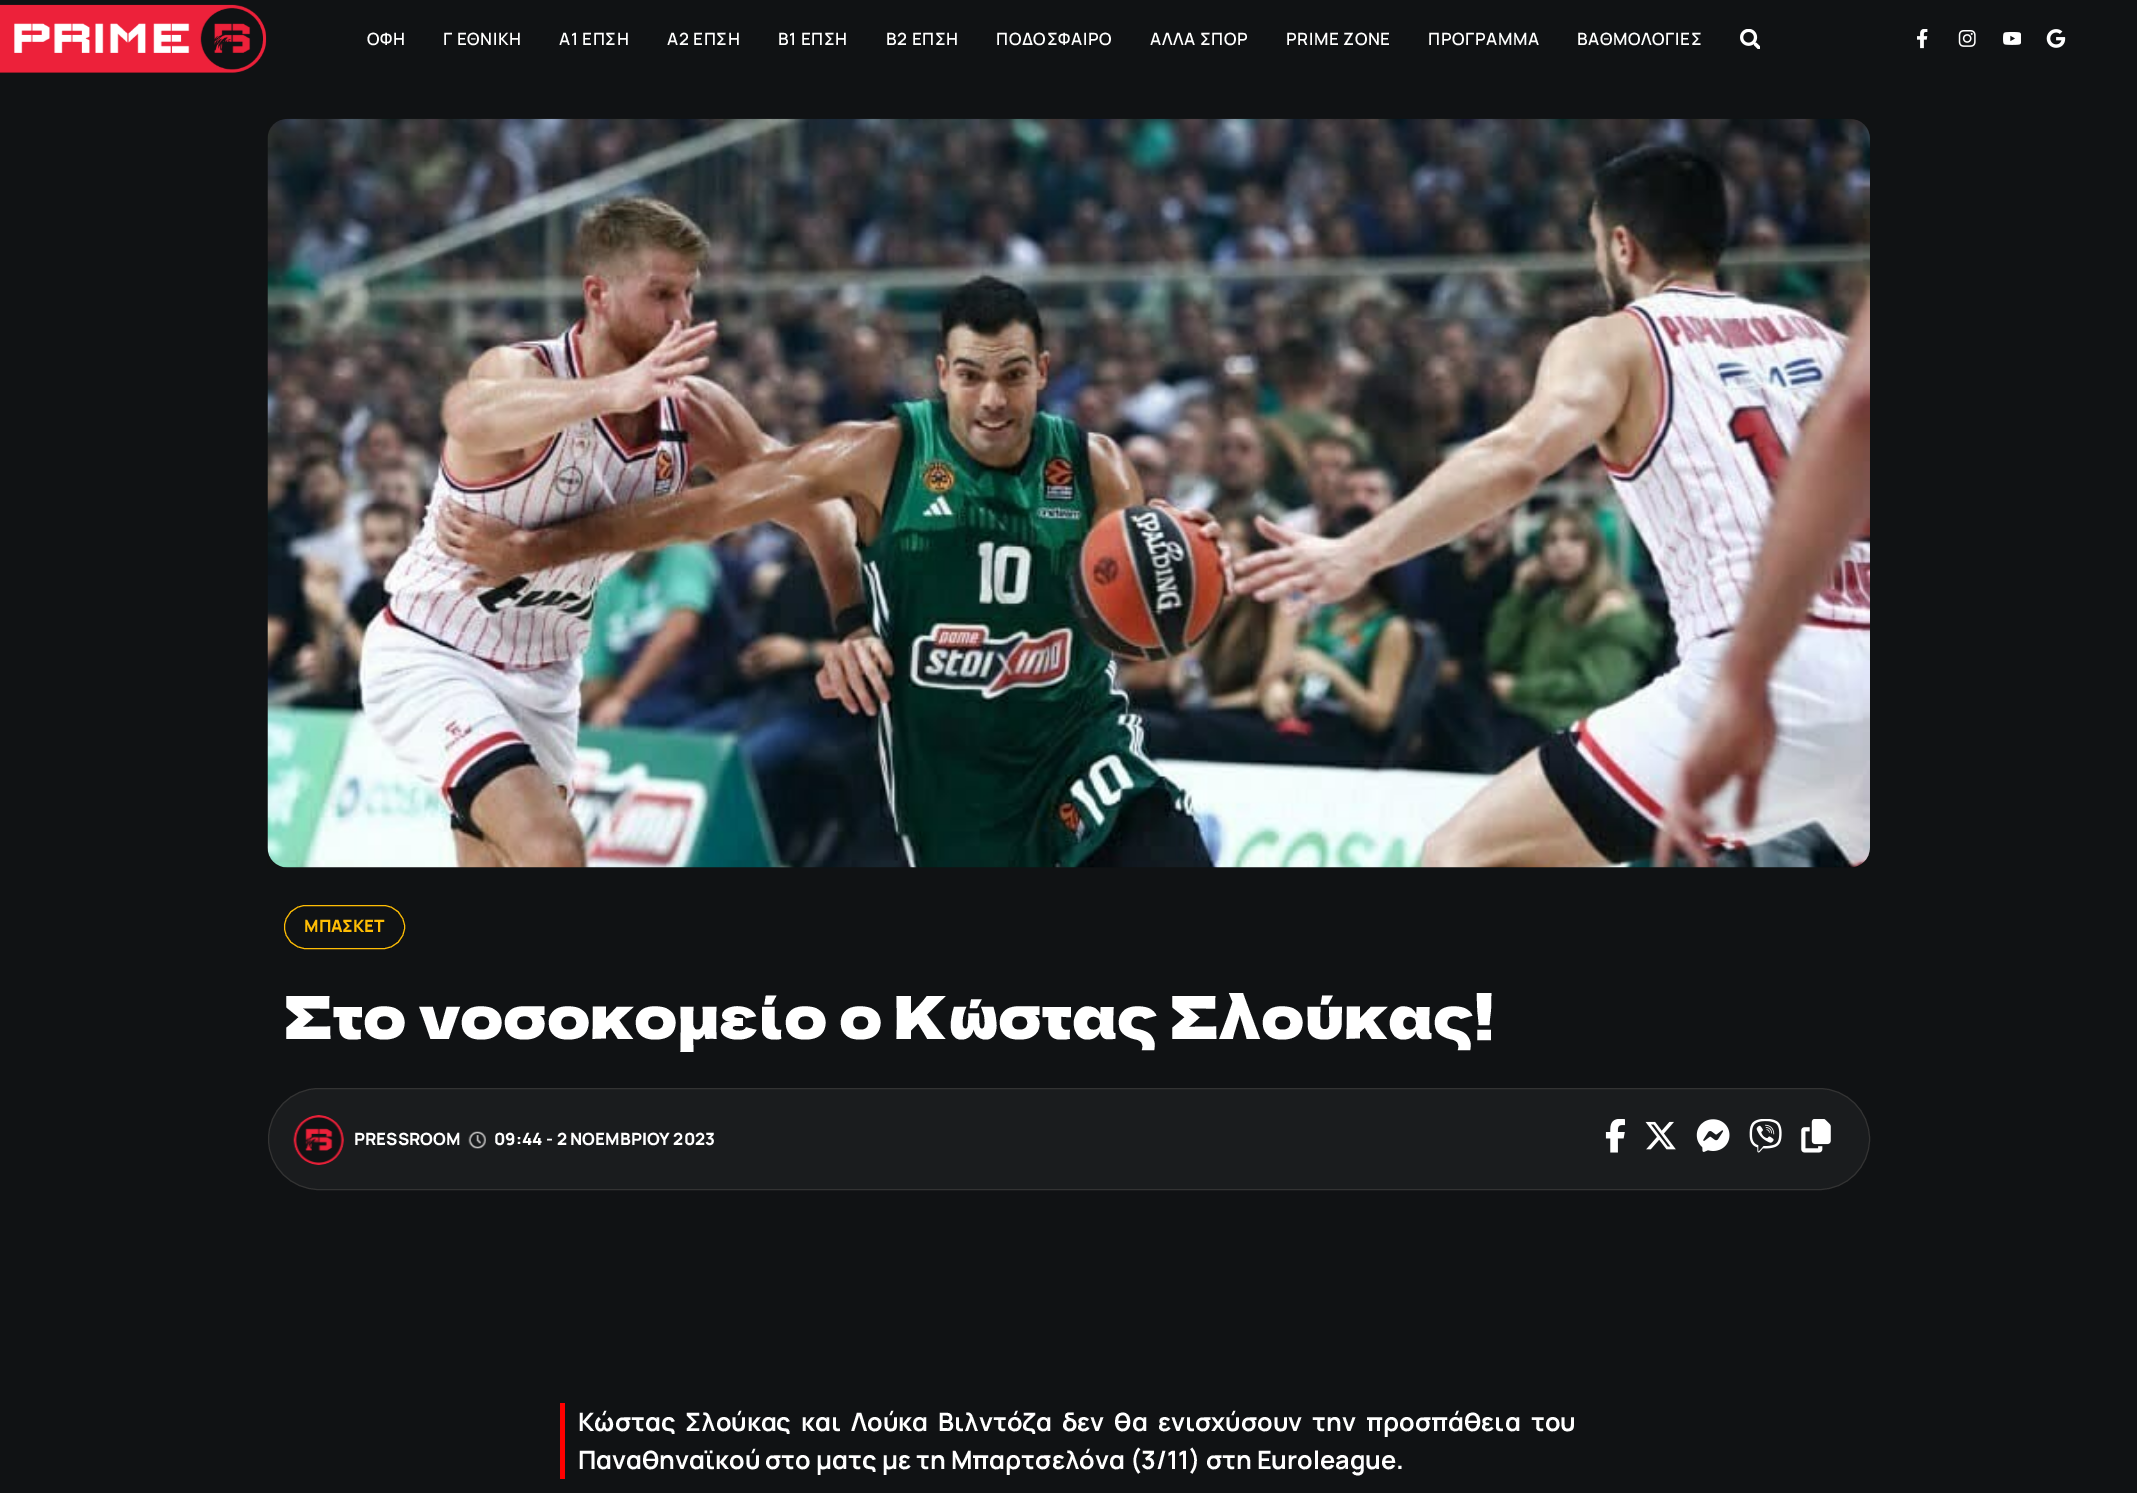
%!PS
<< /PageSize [2137 1493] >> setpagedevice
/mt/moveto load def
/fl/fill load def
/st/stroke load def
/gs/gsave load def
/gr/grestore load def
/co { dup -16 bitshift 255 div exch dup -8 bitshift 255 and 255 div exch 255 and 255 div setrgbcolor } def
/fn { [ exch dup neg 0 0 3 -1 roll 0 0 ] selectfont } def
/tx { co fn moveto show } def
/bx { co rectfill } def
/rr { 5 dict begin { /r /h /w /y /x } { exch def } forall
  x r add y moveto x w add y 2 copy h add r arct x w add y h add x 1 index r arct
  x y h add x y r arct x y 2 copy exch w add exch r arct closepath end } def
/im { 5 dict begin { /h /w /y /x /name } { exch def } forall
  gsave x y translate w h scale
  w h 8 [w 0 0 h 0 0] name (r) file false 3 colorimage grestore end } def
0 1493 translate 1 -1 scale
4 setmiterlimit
0 0 2137 1493 16#101214 bx
(media/1.raw) 0 4 267 69 im
(media/2.raw) 1740 29 20 20 im
(media/3.raw) 1917 29 11 20 im
(media/4.raw) 1958 30 18 17 im
(media/5.raw) 2003 32 18 13 im
(media/6.raw) 2046 29 20 19 im
(media/7.raw) 267 118 1603 750 im
16#FEBD05 co
284.5 905.5 120 43 21.5 rr st
16#1A1C1E co
268.5 1088.5 1601 101 50.5 rr gs fl gr
16#333333 co
st
(media/8.raw) 293 1115 51 50 im
(media/9.raw) 468 1131 18 18 im
(media/10.raw) 1605 1119 20 34 im
(media/11.raw) 1645 1121 31 29 im
(media/12.raw) 1696 1119 34 33 im
(media/13.raw) 1749 1119 33 34 im
(media/14.raw) 1801 1119 30 34 im
560 1403 5 76 16#FF0000 bx
/Manrope-SemiBold 16.9 fn
16#FFFFFF co
367 45 mt .6 0 (ΟΦΗ) ashow
443 45 mt .6 0 (Γ ΕΘΝΙΚΗ) ashow
559 45 mt .6 0 (Α1 ΕΠΣΗ) ashow
667 45 mt .6 0 (Α2 ΕΠΣΗ) ashow
778 45 mt .6 0 (Β1 ΕΠΣΗ) ashow
886 45 mt .6 0 (Β2 ΕΠΣΗ) ashow
996 45 mt .6 0 (ΠΟΔΟΣΦΑΙΡΟ) ashow
1150 45 mt .6 0 (ΑΛΛΑ ΣΠΟΡ) ashow
1286 45 mt .6 0 (PRIME ZONE) ashow
1428 45 mt .6 0 (ΠΡΟΓΡΑΜΜΑ) ashow
1577 45 mt .6 0 (ΒΑΘΜΟΛΟΓΙΕΣ) ashow
(ΜΠΑΣΚΕΤ) 304 932 /Manrope-ExtraBold 16.9 16#FEBD05 tx
(Στο νοσοκομείο ο Κώστας Σλούκας!) 284 1039 /DelaGothicOne-Regular 59.1 16#FFFFFF tx
(PRESSROOM) 354 1145 /Manrope-ExtraBold 16.9 16#FFFFFF tx
(09:44 - 2 ΝΟΕΜΒΡΙΟΥ 2023) 494 1145 /Manrope-ExtraBold 16.9 16#FFFFFF tx
/Manrope-Bold 25.3 fn
578 1431 mt 5 0 32 (Κώστας Σλούκας και Λούκα Βιλντόζα δεν θα ενισχύσουν την προσπάθεια του) widthshow
(Παναθηναϊκού στο ματς με τη Μπαρτσελόνα \(3/11\) στη Euroleague.) 578 1469 /Manrope-Bold 25.3 16#FFFFFF tx
showpage
